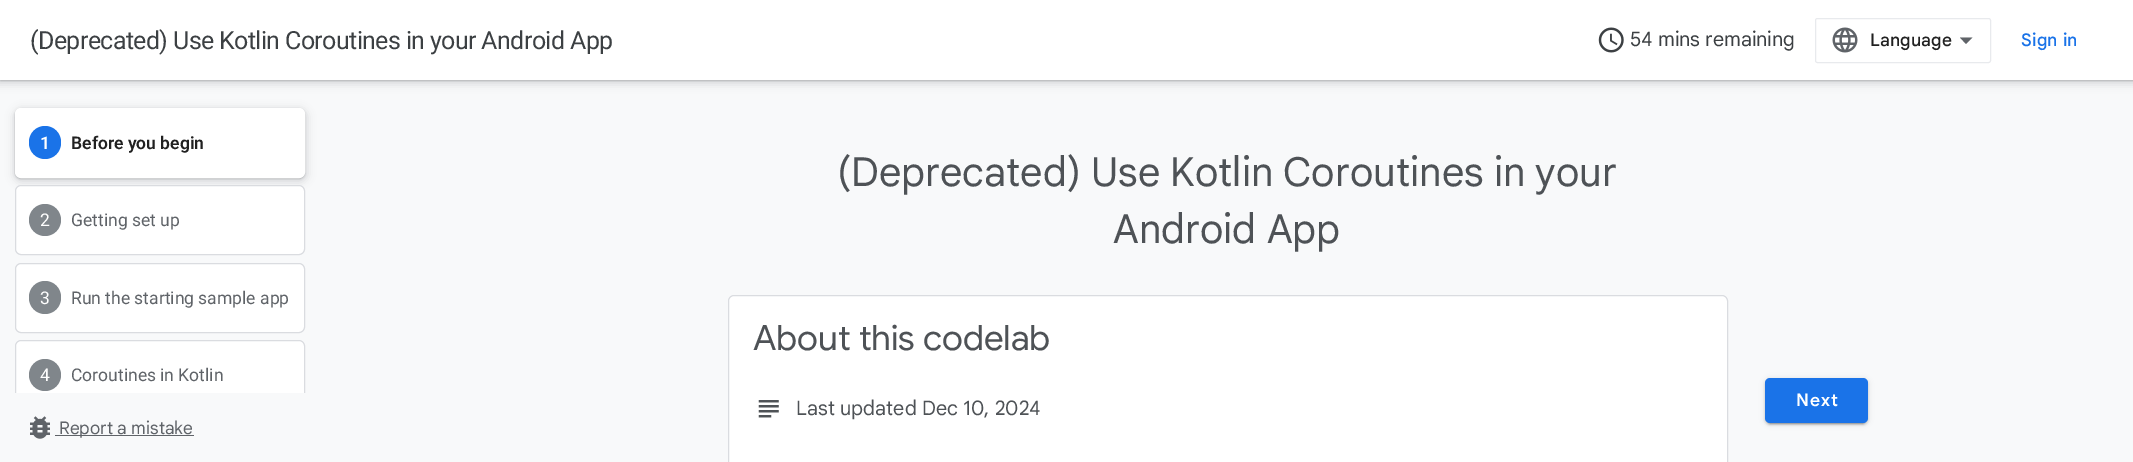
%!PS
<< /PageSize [2133 462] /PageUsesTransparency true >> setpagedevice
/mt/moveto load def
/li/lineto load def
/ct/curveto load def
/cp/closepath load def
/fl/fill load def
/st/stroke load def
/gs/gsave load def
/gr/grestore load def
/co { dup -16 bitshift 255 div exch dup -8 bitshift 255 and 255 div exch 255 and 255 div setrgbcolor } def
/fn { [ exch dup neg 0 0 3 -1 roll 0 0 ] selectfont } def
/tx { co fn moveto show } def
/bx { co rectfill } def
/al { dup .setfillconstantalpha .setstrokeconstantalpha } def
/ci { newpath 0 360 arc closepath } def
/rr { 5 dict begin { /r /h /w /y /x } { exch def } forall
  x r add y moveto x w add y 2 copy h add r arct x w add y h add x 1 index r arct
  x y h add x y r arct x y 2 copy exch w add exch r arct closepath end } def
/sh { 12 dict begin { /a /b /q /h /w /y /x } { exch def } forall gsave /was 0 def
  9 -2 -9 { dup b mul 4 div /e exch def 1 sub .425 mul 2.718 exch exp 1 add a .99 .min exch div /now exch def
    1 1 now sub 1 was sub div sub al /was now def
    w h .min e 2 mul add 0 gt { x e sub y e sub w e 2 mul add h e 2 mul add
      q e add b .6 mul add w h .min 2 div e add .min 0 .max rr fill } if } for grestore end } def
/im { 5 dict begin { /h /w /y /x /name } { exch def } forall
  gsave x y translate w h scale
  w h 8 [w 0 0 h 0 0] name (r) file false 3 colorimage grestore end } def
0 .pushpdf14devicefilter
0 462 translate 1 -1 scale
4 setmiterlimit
0 0 2133 462 16#F8F9FA bx
16#3C4043 co
-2 0 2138 85 0 4 .15 sh
0 1 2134 80 0 1 .3 sh
0 0 2133 80 16#FFFFFF bx
(media/1.raw) 1598 27 26 26 im
16#E8EAED co
1815.5 18.5 175 44 2 rr st
(media/2.raw) 1832 27 26 26 im
16#5F6368 co
1966 44 mt 1960 37.5 li 1972.5 37.5 li cp fl
16#3C4043 co
13 108 295 75 9 4 .15 sh
15 109 290 70 6 1 .3 sh
16#FFFFFF co
15.5 108.5 289 69 5.5 rr gs fl gr
st
16#1A73E8 co
29 126 32 33 16 rr fl
16#FFFFFF co
15.5 185.5 289 69 5.5 rr gs fl gr
16#DADCE0 co
st
16#80868B co
45 220 16 ci fl
16#FFFFFF co
15.5 263.5 289 69 5.5 rr gs fl gr
16#DADCE0 co
st
16#80868B co
29 281 32 33 16 rr fl
16#FFFFFF co
21 340 mt 299 340 li 302.5 340 305 342.5 305 346 ct 305 393 li 15 393 li 15 346 li 15 342.5 17.5 340 21 340 ct cp fl
gs
0 80 320 313 rectclip
16#DADCE0 co
15.5 340.5 289 69 5.5 rr st
gr
16#80868B co
45 375 16 ci fl
16#FFFFFF co
734 295 mt 1722 295 li 1725.5 295 1728 297.5 1728 301 ct 1728 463 li 728 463 li 728 301 li 728 297.5 730.5 295 734 295 ct cp fl
16#DADCE0 co
728.5 295.5 999 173 5.5 rr st
(media/3.raw) 758 400 21 18 im
16#000000 co
1768 384 97 40 2.5 .5 .2 sh
1765 379 103 45 5 3 .12 sh
1765 380 103 45 5 1 .14 sh
16#1A73E8 co
1765 378 103 45 5 rr fl
(media/4.raw) 30 416 20 23 im
55 435 139 1 16#5F6368 bx
/Roboto-Regular 25 fn
16#3C4043 co
30 49 mt -.62 0 (\(Deprecated\) Use Kotlin Coroutines in your Android App) ashow
(54 mins remaining) 1630 46 /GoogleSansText-Regular 20 16#3C4043 tx
(Language) 1870 46 /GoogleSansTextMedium-Medium 17.5 16#212121 tx
16#1A73E8 co
2021 46 mt .25 0 (Sign in) ashow
(1) 40 149 /Roboto-SemiBold 17.5 16#FFFFFF tx
(Before you begin) 71 149 /Roboto-SemiBold 17.5 16#212121 tx
(2) 40 226 /Roboto-Regular 17.5 16#FFFFFF tx
(Getting set up) 71 226 /Roboto-Regular 17.5 16#5F6368 tx
(3) 40 304 /Roboto-Regular 17.5 16#FFFFFF tx
(Run the starting sample app) 71 304 /Roboto-Regular 17.5 16#5F6368 tx
(4) 40 381 /Roboto-Regular 17.5 16#FFFFFF tx
(Coroutines in Kotlin) 71 381 /Roboto-Regular 17.5 16#5F6368 tx
(\(Deprecated\) Use Kotlin Coroutines in your) 837 186 /GoogleSansText-Regular 40 16#4E5256 tx
(Android App) 1113 243 /GoogleSansText-Regular 40 16#4E5256 tx
(About this codelab) 753 350 /GoogleSans-Regular 35 16#4E5256 tx
(Last updated Dec 10, 2024) 796 415 /GoogleSansText-Regular 20 16#4E5256 tx
/GoogleSans-SemiBold 17.5 fn
16#FFFFFF co
1796 406 mt 1 0 (Next) ashow
(Report a mistake) 59 434 /GoogleSansText-Regular 17.5 16#5F6368 tx
.poppdf14devicefilter showpage
